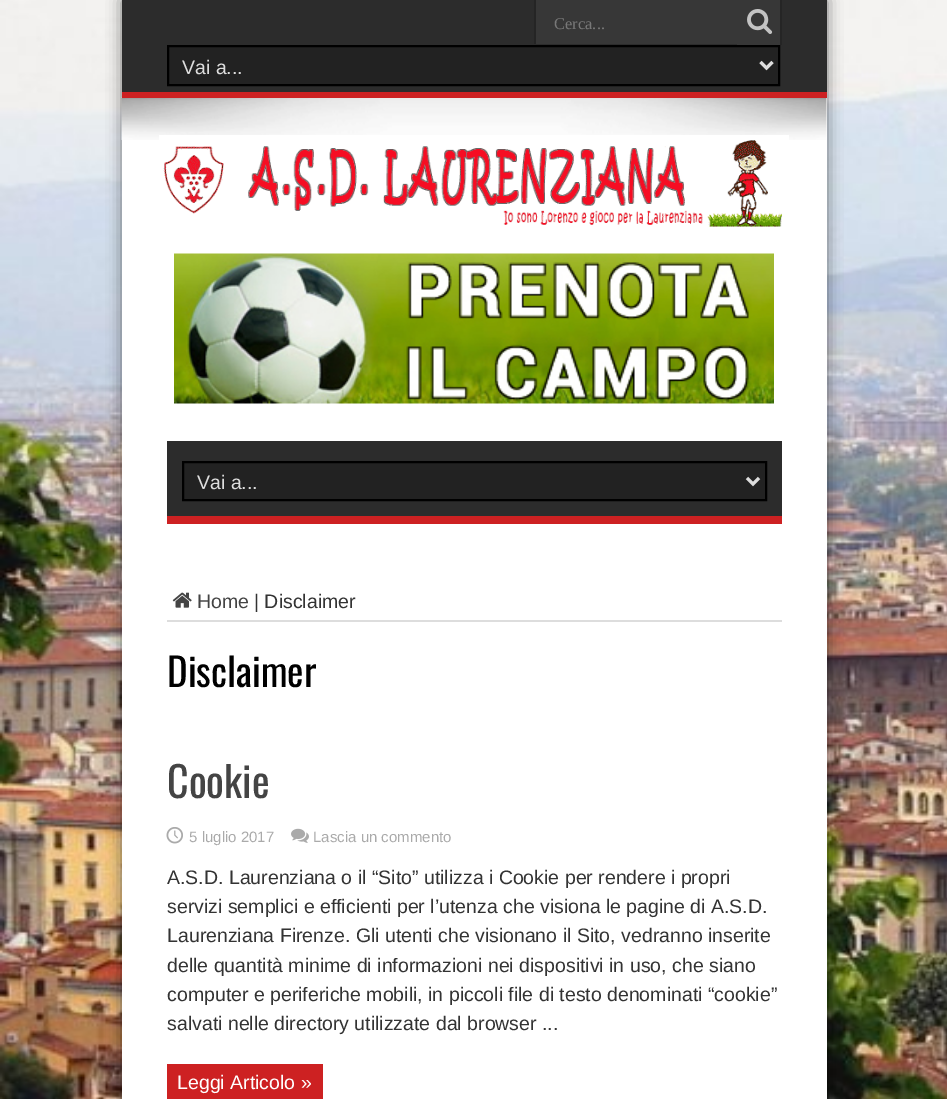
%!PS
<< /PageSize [947 1099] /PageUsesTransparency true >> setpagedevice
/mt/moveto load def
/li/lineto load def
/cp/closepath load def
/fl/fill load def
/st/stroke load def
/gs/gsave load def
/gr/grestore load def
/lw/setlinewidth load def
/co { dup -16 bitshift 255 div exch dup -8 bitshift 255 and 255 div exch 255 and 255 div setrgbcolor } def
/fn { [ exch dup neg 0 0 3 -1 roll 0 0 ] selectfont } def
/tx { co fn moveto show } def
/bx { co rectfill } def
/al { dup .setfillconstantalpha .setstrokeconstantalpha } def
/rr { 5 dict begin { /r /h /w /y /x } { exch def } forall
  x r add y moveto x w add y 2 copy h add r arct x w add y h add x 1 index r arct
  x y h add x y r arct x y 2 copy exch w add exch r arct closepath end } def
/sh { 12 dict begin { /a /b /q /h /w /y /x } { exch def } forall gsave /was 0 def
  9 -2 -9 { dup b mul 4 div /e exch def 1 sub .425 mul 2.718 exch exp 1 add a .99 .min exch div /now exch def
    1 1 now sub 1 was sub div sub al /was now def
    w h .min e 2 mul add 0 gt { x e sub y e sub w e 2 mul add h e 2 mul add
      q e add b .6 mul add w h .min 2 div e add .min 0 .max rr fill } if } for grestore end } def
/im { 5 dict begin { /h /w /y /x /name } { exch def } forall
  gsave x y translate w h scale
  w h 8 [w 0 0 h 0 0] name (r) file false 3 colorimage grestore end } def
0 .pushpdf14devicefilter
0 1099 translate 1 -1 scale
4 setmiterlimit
0 0 947 1099 16#FFFFFF bx
(media/1.raw) 0 0 947 1099 im
16#000000 co
122 0 705 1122 0 7.5 .5 sh
122 98 705 1001 16#FFFFFF bx
122 0 705 92 16#2C2C2C bx
(media/3.raw) 121 97 706 43 im
122 92 705 6 16#CD2122 bx
536 0 201 44 16#373737 bx
534 0 2 44 16#252525 bx
737 0 43 45 16#373737 bx
780 0 2 45 16#252525 bx
(media/2.raw) 747 9 26 25 im
16#222222 co
168 46 mt 779 46 li 779 85 li 168 85 li cp gs fl gr
16#000000 co
2 lw
st
16#DDDDDD co
3 lw
760.5 62 mt 766.5 68 li 772.5 62 li st
(media/4.raw) 159 135 630 92 im
(media/5.raw) 174 253 600 151 im
167 441 615 75 16#2C2C2C bx
167 516 615 8 16#CD2122 bx
16#222222 co
183 462 mt 766 462 li 766 500 li 183 500 li cp gs fl gr
16#000000 co
2 lw
st
16#DDDDDD co
3 lw
747 478 mt 753 484 li 759 478 li st
167 620 615 2 16#DDDDDD bx
(media/6.raw) 172 592 20 16 im
(media/7.raw) 166 827 17 17 im
(media/8.raw) 291 828 18 15 im
167 1064 156 35 16#CD2122 bx
(Cerca...) 554 29 /LiberationSerif-Regular 16.5 16#787878 tx
(Vai a...) 182 74 /LiberationSans-Regular 19.5 16#DDDDDD tx
(Vai a...) 197 489 /LiberationSans-Regular 19.5 16#DDDDDD tx
(Home) 197 608 /LiberationSans-Regular 19.5 16#444444 tx
(| Disclaimer) 254 608 /LiberationSans-Regular 19.5 16#333333 tx
(Disclaimer) 167 687 /Oswald-Regular 39 16#000000 tx
(Cookie) 167 798 /Oswald-Regular 42 16#444444 tx
(5 luglio 2017) 189 842 /LiberationSans-Regular 15 16#AAAAAA tx
(Lascia un commento) 313 842 /LiberationSans-Regular 15 16#AAAAAA tx
(A.S.D. Laurenziana o il “Sito” utilizza i Cookie per rendere i propri) 167 884 /LiberationSans-Regular 19.5 16#333333 tx
(servizi semplici e efficienti per l’utenza che visiona le pagine di A.S.D.) 167 913 /LiberationSans-Regular 19.5 16#333333 tx
(Laurenziana Firenze. Gli utenti che visionano il Sito, vedranno inserite) 167 942 /LiberationSans-Regular 19.5 16#333333 tx
(delle quantità minime di informazioni nei dispositivi in uso, che siano) 167 972 /LiberationSans-Regular 19.5 16#333333 tx
(computer e periferiche mobili, in piccoli file di testo denominati “cookie”) 167 1001 /LiberationSans-Regular 19.5 16#333333 tx
(salvati nelle directory utilizzate dal browser ...) 167 1030 /LiberationSans-Regular 19.5 16#333333 tx
(Leggi Articolo ») 177 1089 /LiberationSans-Regular 19.5 16#FFFFFF tx
.poppdf14devicefilter showpage
